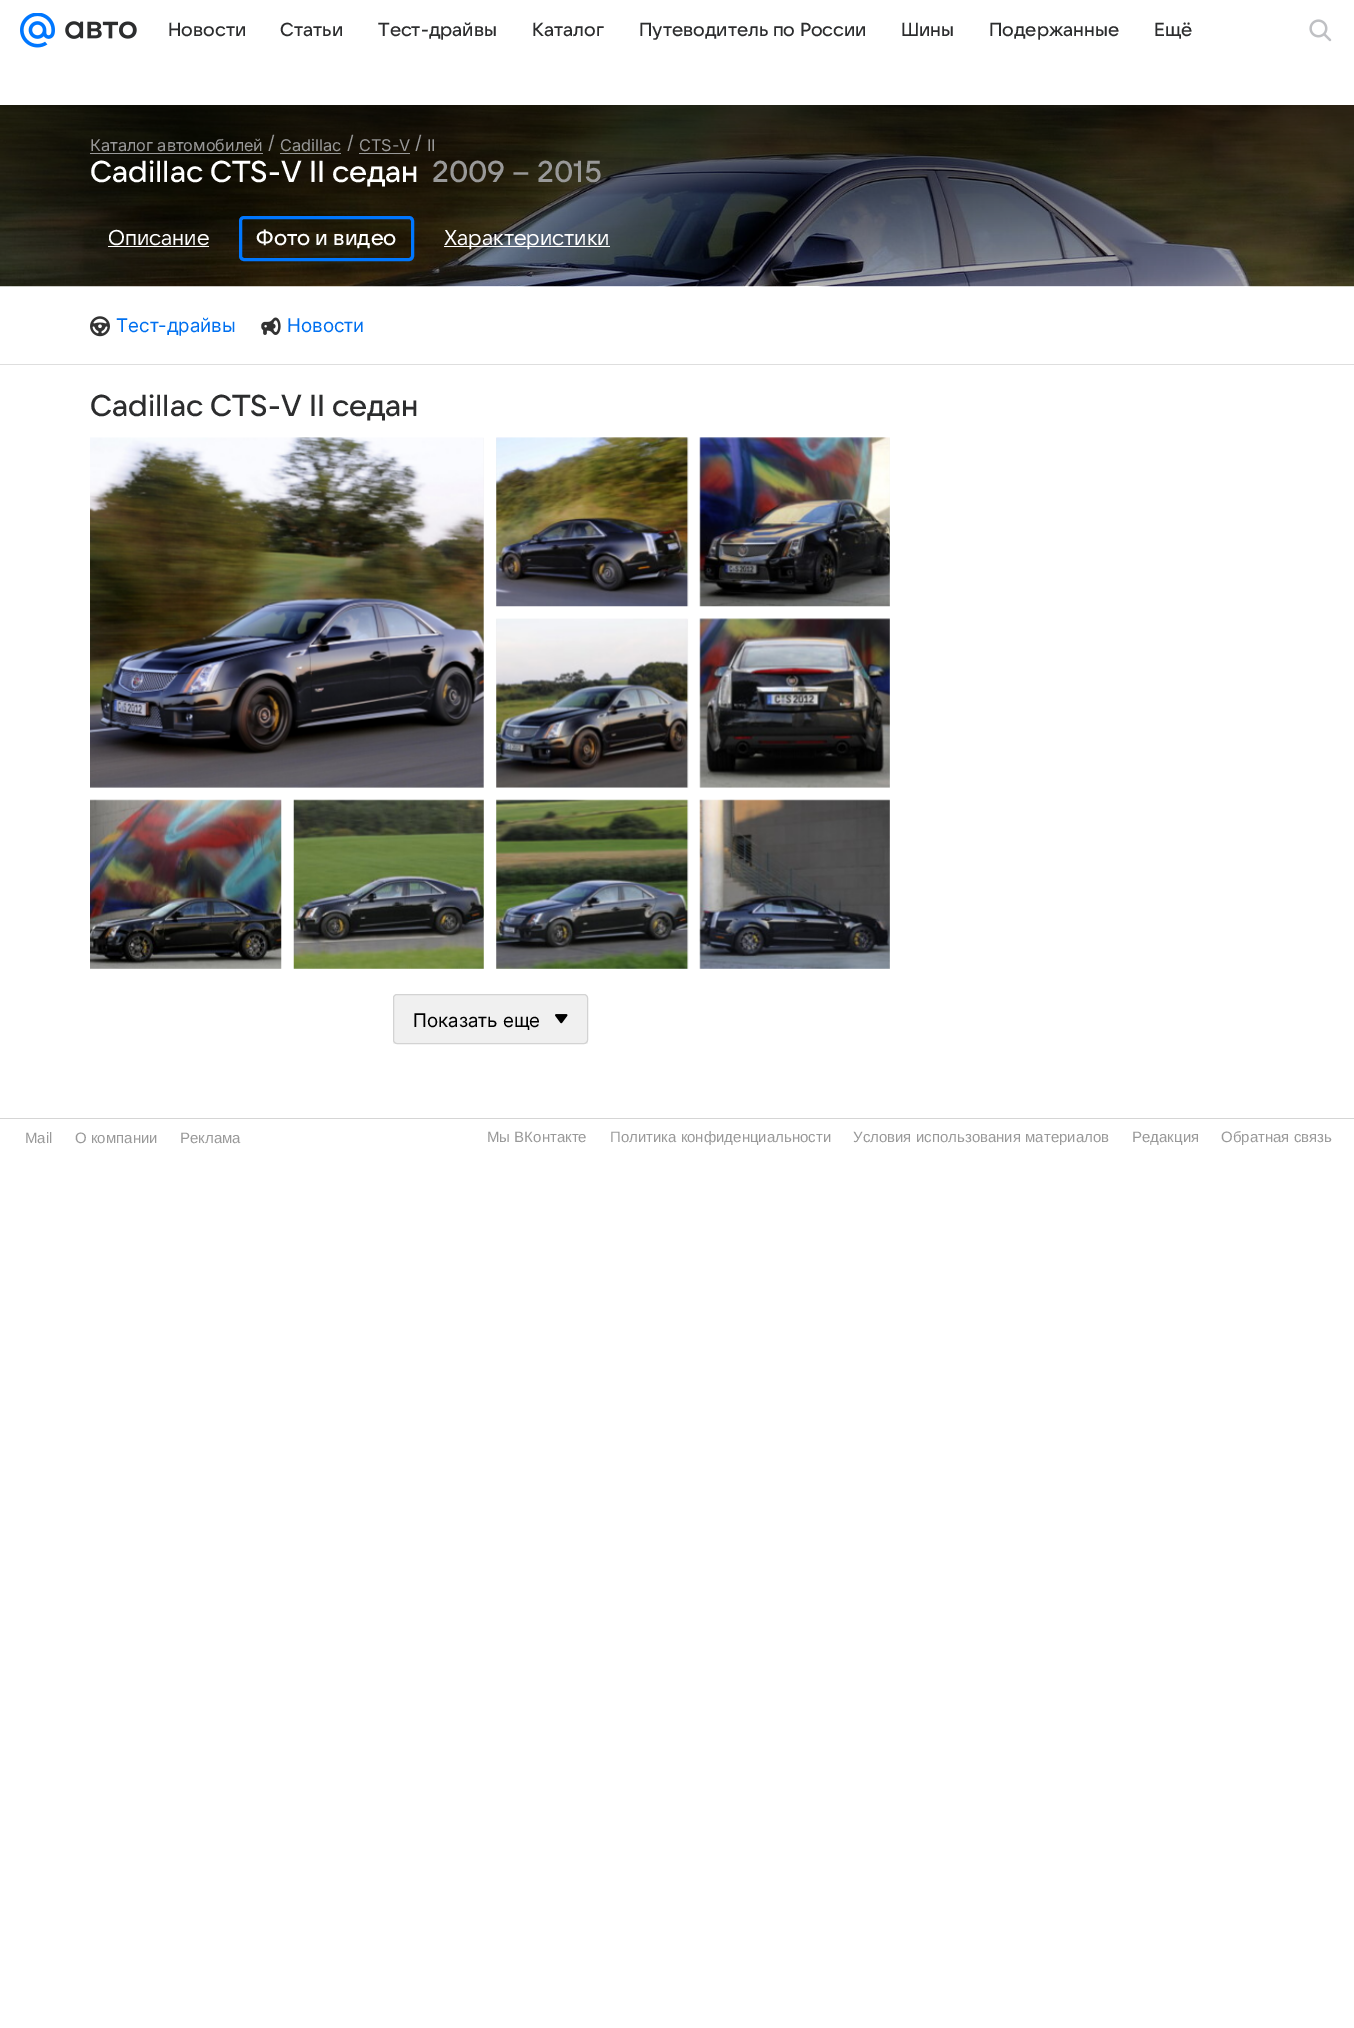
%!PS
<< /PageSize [1354 2028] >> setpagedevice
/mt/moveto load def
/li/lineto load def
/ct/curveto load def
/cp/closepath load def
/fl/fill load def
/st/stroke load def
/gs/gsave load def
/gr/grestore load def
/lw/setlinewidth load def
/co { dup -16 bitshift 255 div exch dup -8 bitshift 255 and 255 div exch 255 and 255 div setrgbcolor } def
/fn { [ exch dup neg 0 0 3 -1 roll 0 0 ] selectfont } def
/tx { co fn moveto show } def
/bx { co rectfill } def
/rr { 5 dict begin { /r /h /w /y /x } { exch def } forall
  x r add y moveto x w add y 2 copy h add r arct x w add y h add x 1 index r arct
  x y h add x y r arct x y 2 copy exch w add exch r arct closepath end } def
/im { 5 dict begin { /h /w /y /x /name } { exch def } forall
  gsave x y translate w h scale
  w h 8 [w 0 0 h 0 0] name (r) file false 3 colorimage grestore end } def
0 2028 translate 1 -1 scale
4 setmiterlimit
0 0 1354 2028 16#FFFFFF bx
(media/1.raw) 20 13 35 35 im
(media/2.raw) 65 21 72 18 im
(media/3.raw) 1309 19 23 23 im
(media/4.raw) 0 105 1354 182 im
90 153 173 1 16#999999 bx
280 153 61 1 16#999999 bx
359 153 51 1 16#999999 bx
108 246 101 1 16#FFFFFF bx
16#0077FF co
3 lw
240.5 217.5 172 42 3.5 rr st
444 246 166 1 16#FFFFFF bx
0 364 1354 1 16#DEDEDE bx
(media/5.raw) 90 316 20 21 im
(media/6.raw) 261 317 20 18 im
90 438 394 350 16#F0F0F0 bx
(media/7.raw) 90 437 394 351 im
496 438 192 168 16#F0F0F0 bx
(media/8.raw) 496 437 193 170 im
(media/9.raw) 699 437 191 170 im
496 619 192 169 16#F0F0F0 bx
(media/10.raw) 496 618 193 170 im
700 619 190 169 16#F0F0F0 bx
(media/11.raw) 699 618 191 170 im
(media/12.raw) 90 799 192 170 im
294 800 190 169 16#F0F0F0 bx
(media/13.raw) 293 799 191 170 im
496 800 192 169 16#F0F0F0 bx
(media/14.raw) 496 799 193 170 im
700 800 190 169 16#F0F0F0 bx
(media/15.raw) 699 799 191 170 im
gs
90 425 800 619 rectclip
16#F5F5F5 co
393 1042 mt 393 1044 395 1046 397 1046 ct 584 1046 li 586 1046 588 1044 588 1042 ct 588 1000 li 588 998 li 588 1040 li 588 1042 586 1044 584 1044 ct 396 1044 li 395 1044 394 1043 393 1042 ct cp fl
gr
393.5 994.5 194 49 3.5 rr gs fl gr
16#D3D3D3 co
1 lw
st
(media/16.raw) 555 1014 13 10 im
0 1118 1354 1 16#D5D5D5 bx
(Новости) 168 36 /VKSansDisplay-Medium 18.75 16#2C2D2E tx
(Статьи) 280 36 /VKSansDisplay-Medium 18.75 16#2C2D2E tx
(Тест-драйвы) 378 36 /VKSansDisplay-Medium 18.75 16#2C2D2E tx
(Каталог) 532 36 /VKSansDisplay-Medium 18.75 16#2C2D2E tx
(Путеводитель по России) 639 36 /VKSansDisplay-Medium 18.75 16#2C2D2E tx
(Шины) 901 36 /VKSansDisplay-Medium 18.75 16#2C2D2E tx
(Подержанные) 989 36 /VKSansDisplay-Medium 18.75 16#2C2D2E tx
(Ещё) 1154 36 /VKSansDisplay-Medium 18.75 16#2C2D2E tx
(Каталог автомобилей) 90 151 /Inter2-Regular 16.25 16#999999 tx
(/) 268 149 /Inter-Regular 18.75 16#999999 tx
(Cadillac) 280 151 /Inter2-Regular 16.25 16#999999 tx
(/) 347 149 /Inter-Regular 18.75 16#999999 tx
(CTS-V) 359 151 /Inter2-Regular 16.25 16#999999 tx
(/) 415 149 /Inter-Regular 18.75 16#999999 tx
(II) 427 151 /Inter2-Regular 16.25 16#999999 tx
(Cadillac CTS-V II седан) 90 182 /VKSansDisplay-Medium 30 16#FFFFFF tx
(2009 – 2015) 432 182 /VKSansDisplay-Medium 30 16#999999 tx
(Описание) 108 245 /VKSansDisplay-Regular 21.25 16#FFFFFF tx
(Фото и видео) 256 245 /VKSansDisplay-Medium 21.25 16#FFFFFF tx
(Характеристики) 444 245 /VKSansDisplay-Regular 21.25 16#FFFFFF tx
(Тест-драйвы) 116 332 /Inter-Regular 18.75 16#0070F0 tx
(Новости) 287 332 /Inter-Regular 18.75 16#0070F0 tx
(Cadillac CTS-V II седан) 90 416 /VKSansDisplay-Medium 30 16#2C2D2E tx
(Показать еще) 413 1027 /Inter-Regular 18.75 16#000000 tx
(Mail) 25 1143 /LiberationSans-Regular 15 16#999999 tx
(О компании) 75 1143 /LiberationSans-Regular 15 16#999999 tx
(Реклама) 180 1143 /LiberationSans-Regular 15 16#999999 tx
(Мы ВКонтакте) 487 1142 /LiberationSans-Regular 15 16#999999 tx
(Политика конфиденциальности) 610 1142 /LiberationSans-Regular 15 16#999999 tx
(Условия использования материалов) 853 1142 /LiberationSans-Regular 15 16#999999 tx
(Редакция) 1132 1142 /LiberationSans-Regular 15 16#999999 tx
(Обратная связь) 1221 1142 /LiberationSans-Regular 15 16#999999 tx
showpage
